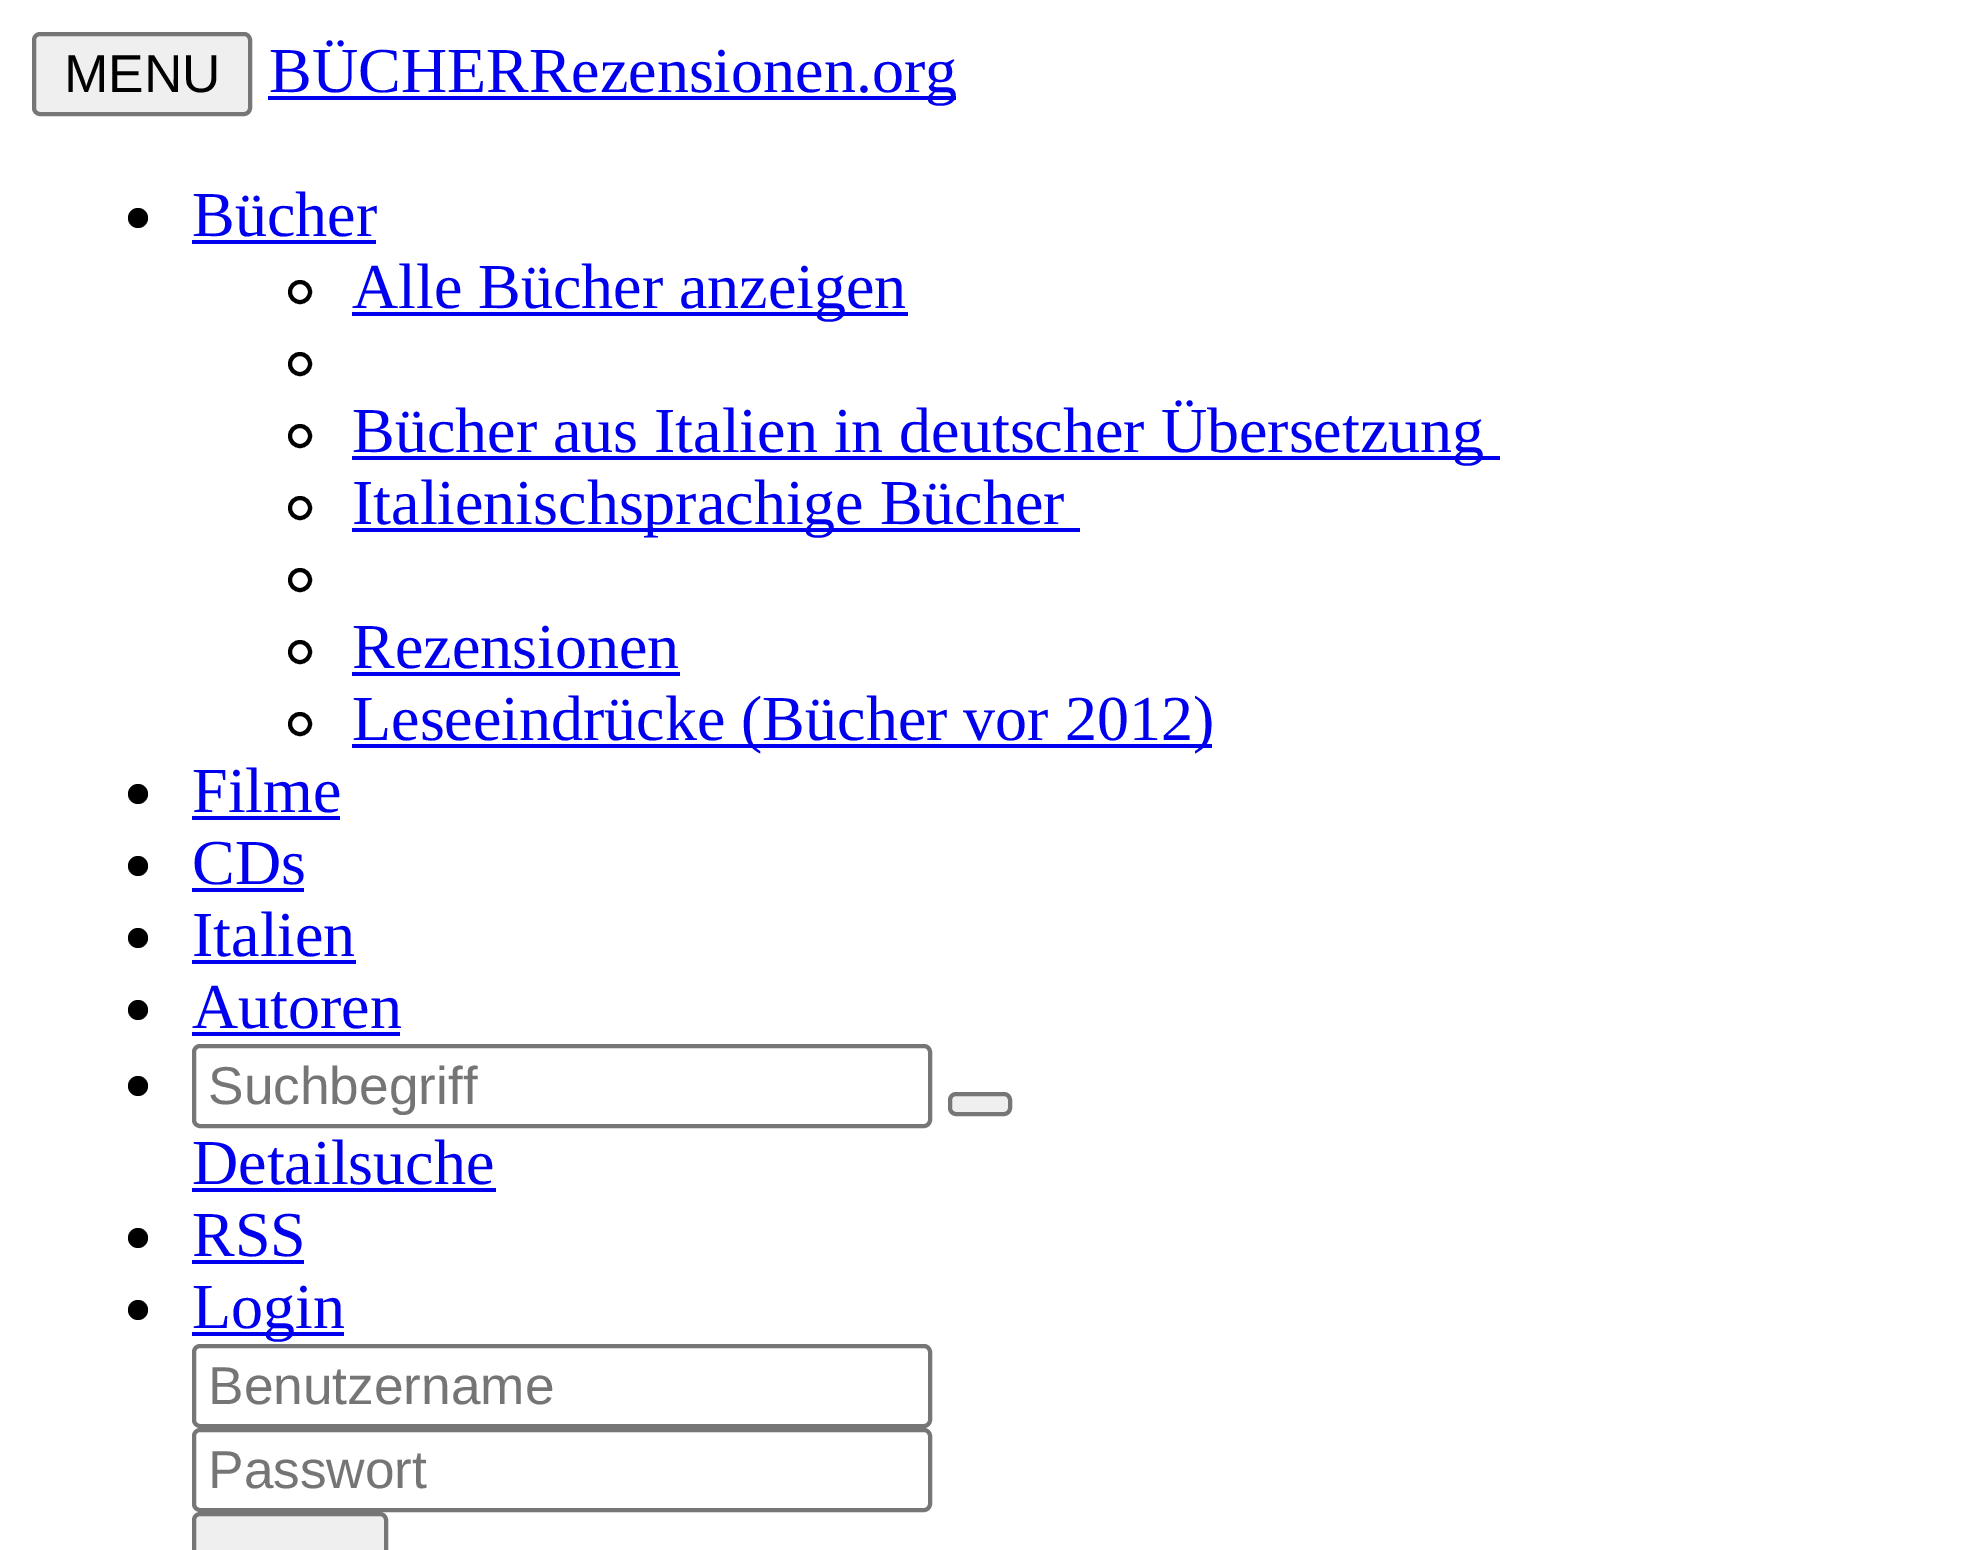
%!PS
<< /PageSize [1975 1550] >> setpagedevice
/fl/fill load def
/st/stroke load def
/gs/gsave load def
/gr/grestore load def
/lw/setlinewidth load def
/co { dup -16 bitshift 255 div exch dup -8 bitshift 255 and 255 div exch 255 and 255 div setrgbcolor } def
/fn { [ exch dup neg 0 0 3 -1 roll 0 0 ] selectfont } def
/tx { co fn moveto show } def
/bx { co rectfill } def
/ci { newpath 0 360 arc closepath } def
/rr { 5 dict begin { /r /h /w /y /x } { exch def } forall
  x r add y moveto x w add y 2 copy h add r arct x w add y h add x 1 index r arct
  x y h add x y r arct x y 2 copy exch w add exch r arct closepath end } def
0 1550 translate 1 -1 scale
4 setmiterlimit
0 0 1975 1550 16#FFFFFF bx
16#EFEFEF co
34 34 216 80 6 rr gs fl gr
16#767676 co
4 lw
st
268 96 688 4 16#0000EE bx
16#000000 co
138 218 10 ci fl
192 240 184 4 16#0000EE bx
16#000000 co
300 292 10 ci st
352 312 556 4 16#0000EE bx
16#000000 co
300 364 10 ci st
300 436 10 ci st
352 456 1148 4 16#0000EE bx
16#000000 co
300 508 10 ci st
352 528 728 4 16#0000EE bx
16#000000 co
300 580 10 ci st
300 652 10 ci st
352 672 328 4 16#0000EE bx
16#000000 co
300 724 10 ci st
352 744 860 4 16#0000EE bx
16#000000 co
138 794 10 ci fl
192 816 148 4 16#0000EE bx
16#000000 co
138 866 10 ci fl
192 888 112 4 16#0000EE bx
16#000000 co
138 938 10 ci fl
192 960 164 4 16#0000EE bx
16#000000 co
138 1010 10 ci fl
192 1032 208 4 16#0000EE bx
16#000000 co
138 1086 10 ci fl
16#767676 co
194 1046 736 80 6 rr st
16#EFEFEF co
950 1094 60 20 6 rr gs fl gr
16#767676 co
st
192 1188 304 4 16#0000EE bx
16#000000 co
138 1238 10 ci fl
192 1260 112 4 16#0000EE bx
16#000000 co
138 1310 10 ci fl
192 1332 152 4 16#0000EE bx
16#767676 co
194 1346 736 80 6 rr st
194 1430 736 80 6 rr st
16#EFEFEF co
194 1514 192 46 6 rr gs fl gr
16#767676 co
st
(MENU) 64 92 /LiberationSans-Regular 53.25 16#000000 tx
(BÜCHERRezensionen.org) 269 92 /LiberationSerif-Regular 64 16#0000EE tx
(Bücher) 192 236 /LiberationSerif-Regular 64 16#0000EE tx
(Alle Bücher anzeigen) 352 308 /LiberationSerif-Regular 64 16#0000EE tx
(Bücher aus Italien in deutscher Übersetzung) 352 452 /LiberationSerif-Regular 64 16#0000EE tx
(Italienischsprachige Bücher) 352 524 /LiberationSerif-Regular 64 16#0000EE tx
(Rezensionen) 352 668 /LiberationSerif-Regular 64 16#0000EE tx
(Leseeindrücke \(Bücher vor 2012\)) 352 740 /LiberationSerif-Regular 64 16#0000EE tx
(Filme) 192 812 /LiberationSerif-Regular 64 16#0000EE tx
(CDs) 192 884 /LiberationSerif-Regular 64 16#0000EE tx
(Italien) 192 956 /LiberationSerif-Regular 64 16#0000EE tx
(Autoren) 192 1028 /LiberationSerif-Regular 64 16#0000EE tx
(Suchbegriff) 208 1104 /LiberationSans-Regular 53.25 16#757575 tx
(Detailsuche) 192 1184 /LiberationSerif-Regular 64 16#0000EE tx
(RSS) 192 1256 /LiberationSerif-Regular 64 16#0000EE tx
(Login) 192 1328 /LiberationSerif-Regular 64 16#0000EE tx
(Benutzername) 208 1404 /LiberationSans-Regular 53.25 16#757575 tx
(Passwort) 208 1488 /LiberationSans-Regular 53.25 16#757575 tx
showpage
